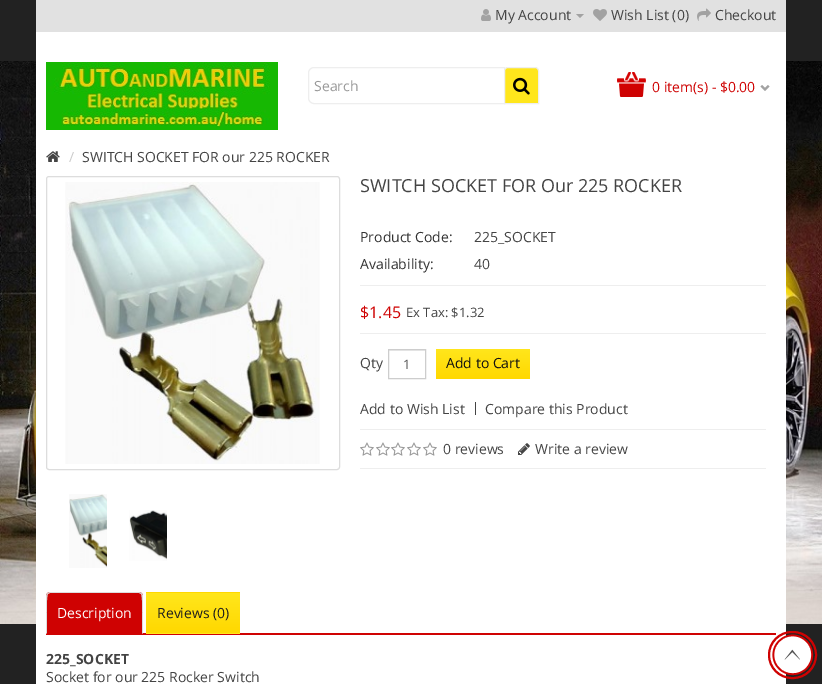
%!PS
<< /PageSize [822 684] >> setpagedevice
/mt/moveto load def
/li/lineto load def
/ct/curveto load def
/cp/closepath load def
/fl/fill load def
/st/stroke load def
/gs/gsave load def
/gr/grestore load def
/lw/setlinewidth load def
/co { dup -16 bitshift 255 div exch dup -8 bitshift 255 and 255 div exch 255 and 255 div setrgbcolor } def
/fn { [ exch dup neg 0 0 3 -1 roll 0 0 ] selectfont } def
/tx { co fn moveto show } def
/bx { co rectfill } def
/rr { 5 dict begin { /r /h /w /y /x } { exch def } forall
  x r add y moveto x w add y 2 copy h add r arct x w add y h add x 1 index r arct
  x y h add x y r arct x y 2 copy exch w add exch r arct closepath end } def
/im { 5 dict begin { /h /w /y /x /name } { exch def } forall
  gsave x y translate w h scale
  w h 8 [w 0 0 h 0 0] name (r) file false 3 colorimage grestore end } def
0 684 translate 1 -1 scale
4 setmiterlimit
0 0 822 684 16#222222 bx
(media/1.raw) 0 61 822 563 im
36 0 750 32 16#E1E1E1 bx
(media/2.raw) 481 9 10 12 im
16#A2A2A2 co
576 14 mt 584 14 li 580 18 li cp fl
(media/3.raw) 593 9 14 12 im
(media/4.raw) 697 8 14 13 im
36 32 750 652 16#FFFFFF bx
(media/5.raw) 46 62 232 68 im
16#EEEEEE co
314 67.5 mt 504.5 67.5 li 504.5 103.5 li 314 103.5 li 311 103.5 308.5 101 308.5 98 ct 308.5 73 li 308.5 70 311 67.5 314 67.5 ct cp st
16#FFE61C co
508 67.5 mt 535 67.5 li 537 67.5 538.5 69 538.5 71 ct 538.5 103.5 li 504.5 103.5 li 504.5 71 li 504.5 69 506 67.5 508 67.5 ct cp gs fl gr
16#EEEEEE co
st
(media/6.raw) 513 77 17 18 im
(media/7.raw) 617 72 29 25 im
(media/8.raw) 760 85 10 6 im
(media/9.raw) 46 151 14 11 im
16#DDDDDD co
46.5 176.5 293 293 2.5 rr st
(media/10.raw) 65 182 255 282 im
(media/11.raw) 69 494 38 74 im
(media/12.raw) 129 510 38 51 im
360 285 406 1 16#EEEEEE bx
360 333 406 1 16#EEEEEE bx
360 429 406 1 16#EEEEEE bx
389 350 36 1 16#ECECEC bx
16#CDCDCD co
388.5 349.5 37 29 rectstroke
gs 436 349 94 30 3 rr clip newpath
<< /ShadingType 2 /ColorSpace /DeviceRGB /Coords [483 349 483 379] /Extend [true true] /Function << /FunctionType 2 /Domain [0 1] /C0 [1 .902 .11] /C1 [1 .847 0] /N 1 >> >> shfill gr
475 402 1 13 16#444444 bx
360 468 406 1 16#EEEEEE bx
(media/13.raw) 360 442 14 14 im
(media/13.raw) 376 442 14 14 im
(media/13.raw) 391 442 14 14 im
(media/13.raw) 407 442 14 14 im
(media/13.raw) 423 442 14 14 im
(media/14.raw) 518 443 12 12 im
46 633 730 2 16#CF0202 bx
50 592 mt 139 592 li 141 592 143 594 143 596 ct 143 634 li 46 634 li 46 596 li 46 594 48 592 50 592 ct cp fl
16#DDDDDD co
50 592 mt 47 593 li 48 594 li 50 593 li 139 593 li 141 594 li 142 593 li 139 592 li cp fl
143 634 mt 143 596 li 143 595 142 594 142 593 ct 141 594 li 143 596 142 628 142 633 ct cp fl
46 634 mt 47 633 li 47 628 46 596 48 594 ct 47 593 li 46 596 li cp fl
16#FFE61C co
149 592 mt 237 592 li 238.5 592 240 593.5 240 595 ct 240 634 li 146 634 li 146 595 li 146 593.5 147.5 592 149 592 ct cp fl
gs
149 592 mt 237 592 li 238.5 592 240 593.5 240 595 ct 240 634 li 146 634 li 146 595 li 146 593.5 147.5 592 149 592 ct cp clip newpath
gs 146 592 mt 240 592 li 240 593 li 146 593 li cp clip newpath
<< /ShadingType 2 /ColorSpace /DeviceRGB /Coords [193 553 193 593] /Extend [true true] /Function << /FunctionType 2 /Domain [0 1] /C0 [1 .902 .11] /C1 [1 .847 0] /N 1 >> >> shfill gr
gs 146 593 mt 240 593 li 240 633 li 146 633 li cp clip newpath
<< /ShadingType 2 /ColorSpace /DeviceRGB /Coords [193 593 193 633] /Extend [true true] /Function << /FunctionType 2 /Domain [0 1] /C0 [1 .902 .11] /C1 [1 .847 0] /N 1 >> >> shfill gr
gr
(media/15.raw) 772 634 42 42 im
16#CF0202 co
2 lw
769 632 47 46 23 rr st
(My Account) 495 20 /OpenSans-Regular 14 16#444444 tx
(Wish List \(0\)) 611 20 /OpenSans-Regular 14 16#444444 tx
(Checkout) 715 20 /OpenSans-Regular 14 16#444444 tx
(Search) 314 91 /OpenSans-Regular 14 16#999999 tx
(0 item\(s\) - $0.00) 652 92 /OpenSans-Regular 14 16#CF0202 tx
(/) 69 162 /OpenSans-Regular 14 16#CCCCCC tx
(SWITCH SOCKET FOR our 225 ROCKER) 82 162 /OpenSans-Regular 14 16#444444 tx
(SWITCH SOCKET FOR Our 225 ROCKER) 360 192 /OpenSans-Regular 18 16#444444 tx
(Product Code:) 360 242 /OpenSans-Regular 14 16#333333 tx
(225_SOCKET) 474 242 /OpenSans-Regular 14 16#444444 tx
(Availability:) 360 269 /OpenSans-Regular 14 16#333333 tx
(40) 474 269 /OpenSans-Regular 14 16#444444 tx
($1.45) 360 318 /OpenSans-Regular 16 16#CF0202 tx
(Ex Tax: $1.32) 406 317 /OpenSans-Regular 13 16#444444 tx
(Qty) 360 368 /OpenSans-Regular 14 16#444444 tx
(1) 403 369 /OpenSans-Regular 13 16#555555 tx
(Add to Cart) 446 368 /OpenSans-Regular 14 16#111111 tx
(Add to Wish List) 360 414 /OpenSans-Regular 14 16#444444 tx
(Compare this Product) 485 414 /OpenSans-Regular 14 16#444444 tx
(0 reviews) 443 454 /OpenSans-Regular 14 16#444444 tx
(Write a review) 535 454 /OpenSans-Regular 14 16#444444 tx
(Description) 57 618 /OpenSans-Regular 14 16#FFFFFF tx
(Reviews \(0\)) 157 618 /OpenSans-Regular 14 16#1E1E1E tx
(225_SOCKET) 46 664 /OpenSans-Bold 14 16#444444 tx
(Socket for our 225 Rocker Switch) 46 682 /OpenSans-Regular 14 16#444444 tx
showpage
